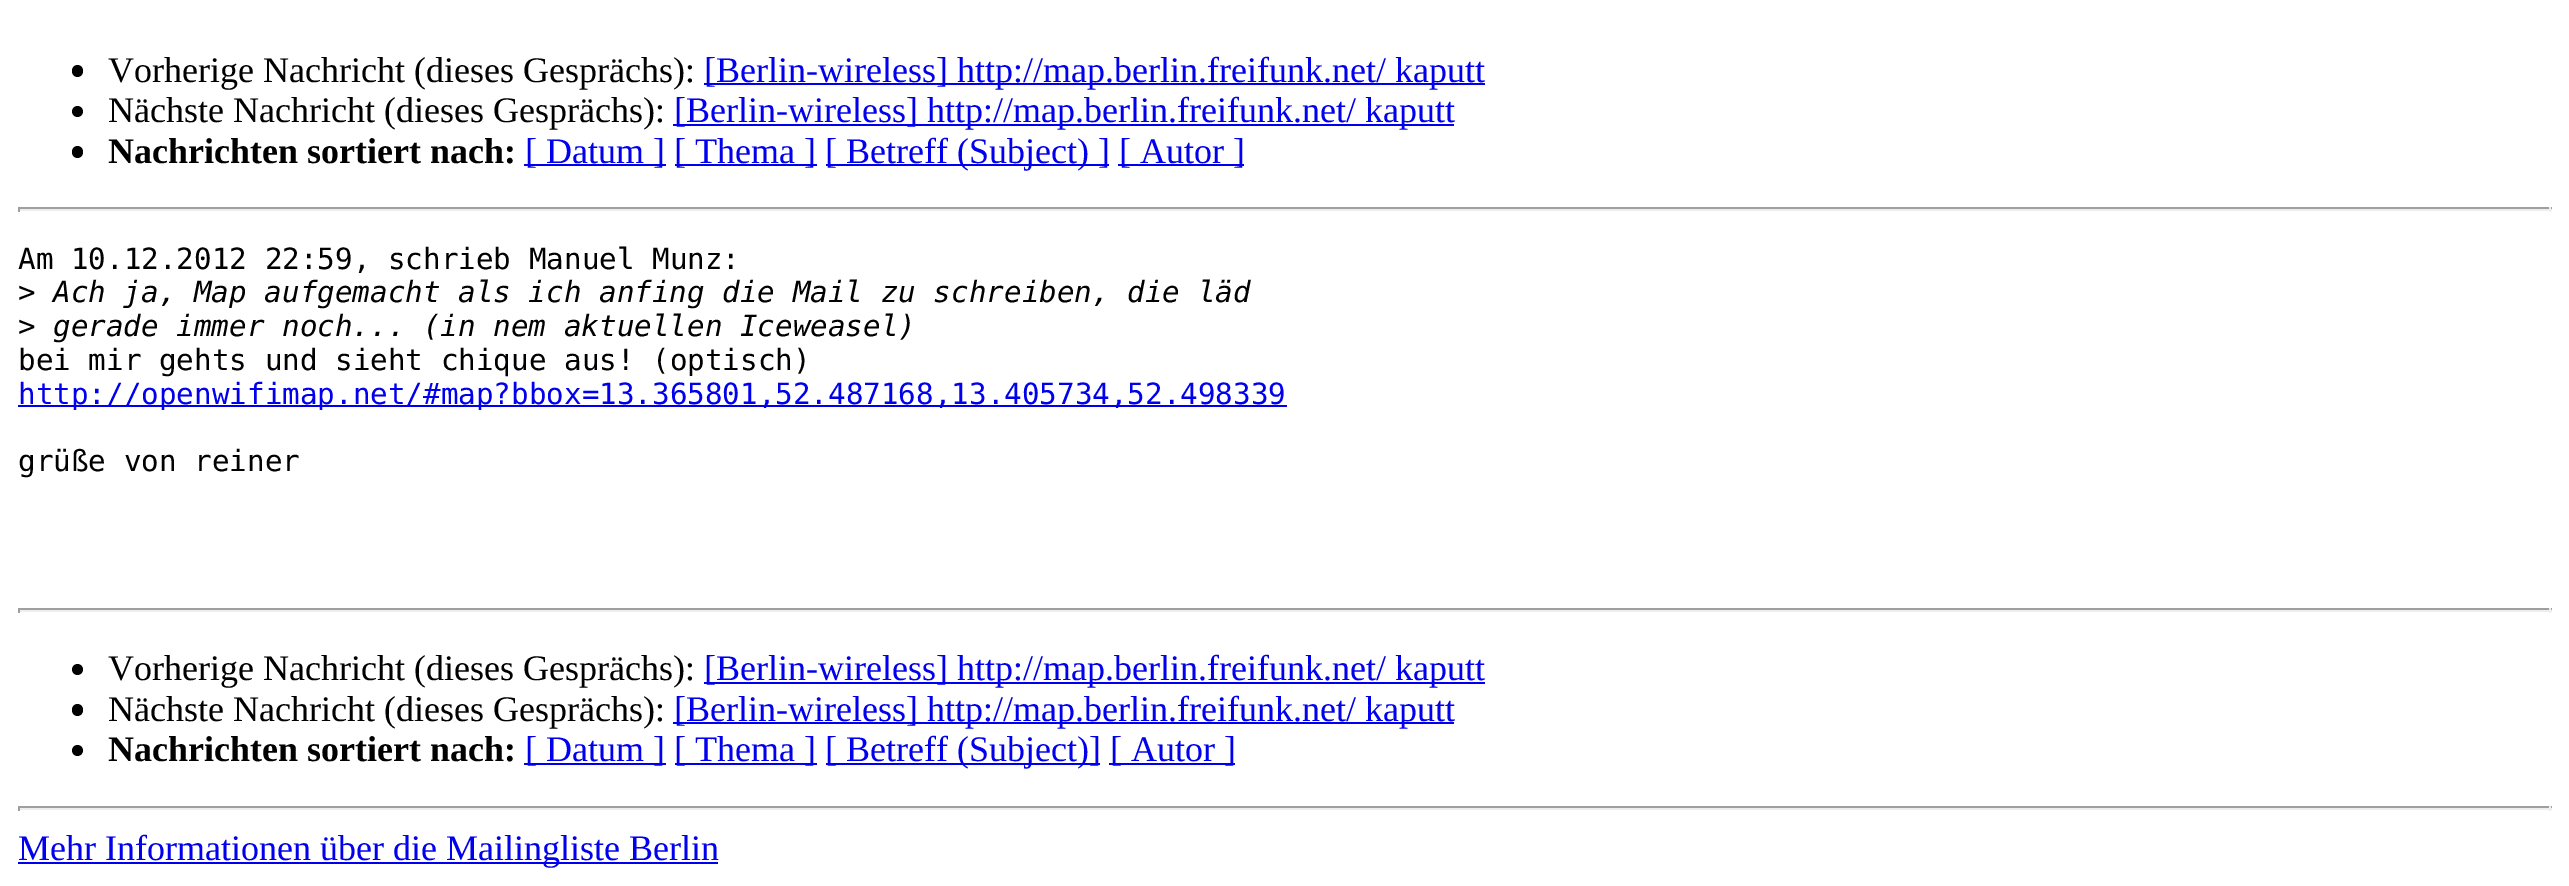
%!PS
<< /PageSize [2569 886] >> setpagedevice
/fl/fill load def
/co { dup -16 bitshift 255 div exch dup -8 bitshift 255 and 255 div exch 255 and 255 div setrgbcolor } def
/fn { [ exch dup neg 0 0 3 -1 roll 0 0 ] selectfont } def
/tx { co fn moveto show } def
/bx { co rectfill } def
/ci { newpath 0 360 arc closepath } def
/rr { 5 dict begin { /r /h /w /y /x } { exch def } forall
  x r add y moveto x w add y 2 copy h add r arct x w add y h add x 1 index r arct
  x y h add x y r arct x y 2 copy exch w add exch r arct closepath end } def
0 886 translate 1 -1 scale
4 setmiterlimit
0 0 2569 886 16#FFFFFF bx
16#000000 co
72 65 11 12 5.5 rr fl
704 83 781 2 16#0000EE bx
16#000000 co
77.5 111.5 5.5 ci fl
673 124 781 2 16#0000EE bx
16#000000 co
72 146 11 12 5.5 rr fl
524 164 142 2 16#0000EE bx
675 164 142 2 16#0000EE bx
826 164 283 2 16#0000EE bx
1118 164 126 2 16#0000EE bx
18 207 2534 2 16#9F9F9F bx
2549 207 2 5 16#EEEEEE bx
18 209 2534 2 16#EEEEEE bx
18 207 2 5 16#9F9F9F bx
18 405 1269 2 16#0000EE bx
18 608 2534 2 16#9F9F9F bx
2549 608 2 5 16#EEEEEE bx
18 610 2534 2 16#EEEEEE bx
18 608 2 5 16#9F9F9F bx
16#000000 co
77.5 669.5 5.5 ci fl
704 682 781 2 16#0000EE bx
16#000000 co
72 704 11 12 5.5 rr fl
673 722 781 2 16#0000EE bx
16#000000 co
77.5 750.5 5.5 ci fl
524 763 142 2 16#0000EE bx
675 763 142 2 16#0000EE bx
826 763 274 2 16#0000EE bx
1109 763 126 2 16#0000EE bx
18 806 2534 2 16#9F9F9F bx
2549 806 2 5 16#EEEEEE bx
18 808 2534 2 16#EEEEEE bx
18 806 2 5 16#9F9F9F bx
18 862 700 2 16#0000EE bx
(Vorherige Nachricht \(dieses Gesprächs\):) 108 82 /LiberationSerif-Regular 36 16#000000 tx
([Berlin-wireless] http://map.berlin.freifunk.net/ kaputt) 704 82 /LiberationSerif-Regular 36 16#0000EE tx
(Nächste Nachricht \(dieses Gesprächs\):) 108 122 /LiberationSerif-Regular 36 16#000000 tx
([Berlin-wireless] http://map.berlin.freifunk.net/ kaputt) 674 122 /LiberationSerif-Regular 36 16#0000EE tx
(Nachrichten sortiert nach:) 108 163 /LiberationSerif-Bold 36 16#000000 tx
([ Datum ]) 525 163 /LiberationSerif-Regular 36 16#0000EE tx
([ Thema ]) 674 163 /LiberationSerif-Regular 36 16#0000EE tx
([ Betreff \(Subject\) ]) 825 163 /LiberationSerif-Regular 36 16#0000EE tx
([ Autor ]) 1119 163 /LiberationSerif-Regular 36 16#0000EE tx
(Am 10.12.2012 22:59, schrieb Manuel Munz:) 18 269 /DejaVuSansMono-Regular 29.25 16#000000 tx
(>) 18 302 /DejaVuSansMono-Regular 29.25 16#000000 tx
(Ach ja, Map aufgemacht als ich anfing die Mail zu schreiben, die läd) 53 302 /DejaVuSansMono-Italic 29.25 16#000000 tx
(>) 18 336 /DejaVuSansMono-Regular 29.25 16#000000 tx
(gerade immer noch... \(in nem aktuellen Iceweasel\)) 53 336 /DejaVuSansMono-Italic 29.25 16#000000 tx
(bei mir gehts und sieht chique aus! \(optisch\)) 18 370 /DejaVuSansMono-Regular 29.25 16#000000 tx
(http://openwifimap.net/#map?bbox=13.365801,52.487168,13.405734,52.498339) 18 404 /DejaVuSansMono-Regular 29.25 16#0000EE tx
(grüße von reiner) 18 471 /DejaVuSansMono-Regular 29.25 16#000000 tx
(Vorherige Nachricht \(dieses Gesprächs\):) 108 680 /LiberationSerif-Regular 36 16#000000 tx
([Berlin-wireless] http://map.berlin.freifunk.net/ kaputt) 704 680 /LiberationSerif-Regular 36 16#0000EE tx
(Nächste Nachricht \(dieses Gesprächs\):) 108 721 /LiberationSerif-Regular 36 16#000000 tx
([Berlin-wireless] http://map.berlin.freifunk.net/ kaputt) 674 721 /LiberationSerif-Regular 36 16#0000EE tx
(Nachrichten sortiert nach:) 108 761 /LiberationSerif-Bold 36 16#000000 tx
([ Datum ]) 525 761 /LiberationSerif-Regular 36 16#0000EE tx
([ Thema ]) 674 761 /LiberationSerif-Regular 36 16#0000EE tx
([ Betreff \(Subject\)]) 825 761 /LiberationSerif-Regular 36 16#0000EE tx
([ Autor ]) 1110 761 /LiberationSerif-Regular 36 16#0000EE tx
(Mehr Informationen über die Mailingliste Berlin) 18 860 /LiberationSerif-Regular 36 16#0000EE tx
showpage
